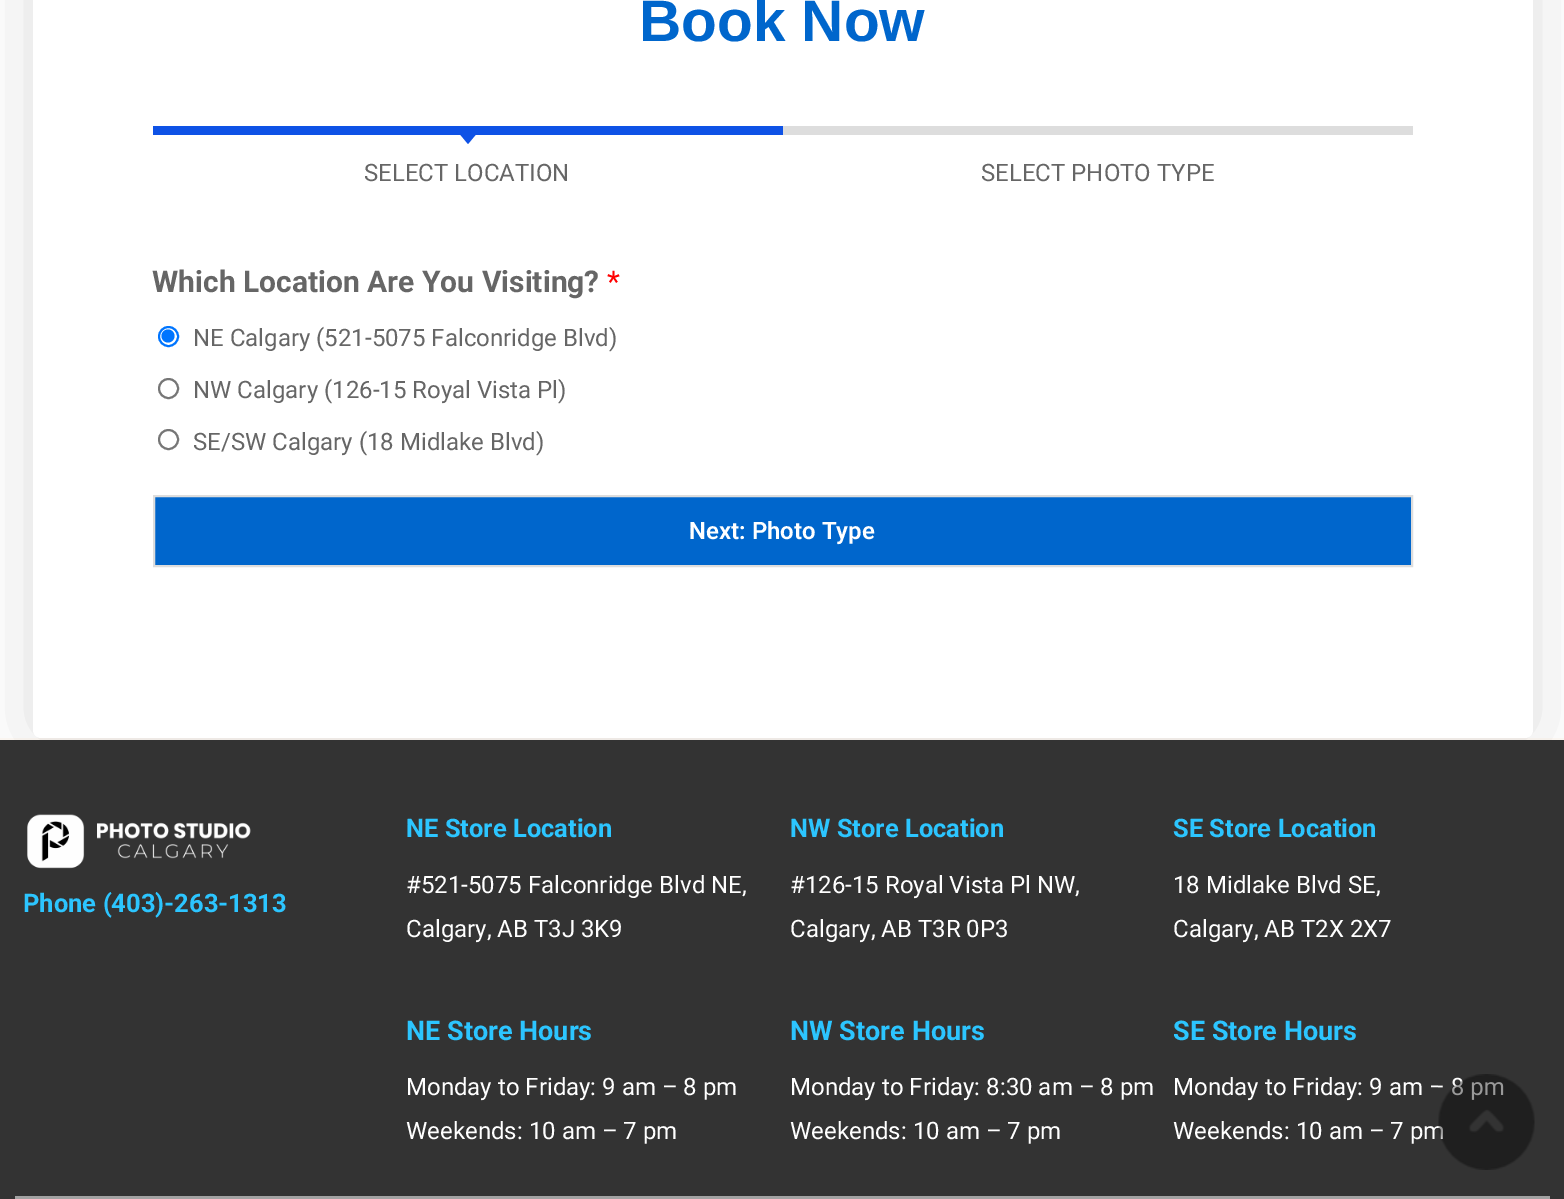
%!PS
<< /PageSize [1564 1199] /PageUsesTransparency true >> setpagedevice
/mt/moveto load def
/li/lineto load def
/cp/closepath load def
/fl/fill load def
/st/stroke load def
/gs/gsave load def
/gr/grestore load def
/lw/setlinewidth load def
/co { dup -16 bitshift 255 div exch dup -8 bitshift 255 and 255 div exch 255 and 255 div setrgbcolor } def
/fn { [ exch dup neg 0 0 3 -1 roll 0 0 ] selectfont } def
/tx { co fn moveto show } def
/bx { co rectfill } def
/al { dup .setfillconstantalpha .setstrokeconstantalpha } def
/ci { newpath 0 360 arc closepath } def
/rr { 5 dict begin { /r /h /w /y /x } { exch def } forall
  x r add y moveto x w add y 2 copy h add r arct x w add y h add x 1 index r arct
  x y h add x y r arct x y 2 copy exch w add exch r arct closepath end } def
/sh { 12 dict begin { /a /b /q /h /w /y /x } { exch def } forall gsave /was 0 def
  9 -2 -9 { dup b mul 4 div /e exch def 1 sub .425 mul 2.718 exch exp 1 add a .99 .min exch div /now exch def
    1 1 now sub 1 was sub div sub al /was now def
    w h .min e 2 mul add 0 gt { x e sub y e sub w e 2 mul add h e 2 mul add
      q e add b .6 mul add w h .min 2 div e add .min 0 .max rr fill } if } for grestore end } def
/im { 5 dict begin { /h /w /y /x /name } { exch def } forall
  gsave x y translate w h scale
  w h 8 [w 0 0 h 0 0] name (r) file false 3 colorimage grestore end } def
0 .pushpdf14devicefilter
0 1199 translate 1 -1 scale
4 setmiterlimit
0 0 1564 1199 16#FFFFFF bx
0 738 1564 2 16#FFFAF5 bx
16#000000 co
33 -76 1500 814 8 37.5 .13 sh
16#FFFFFF co
33 -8 1500 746 8 rr fl
153 126 630 9 16#0E52E6 bx
460.5 135 mt 475.5 135 li 468 144 li cp fl
783 126 630 9 16#DDDDDD bx
16#0075FF co
2 lw
168.5 336.5 9.5 ci st
168 336 6.5 ci fl
16#767676 co
168.5 388.5 9.5 ci st
168.5 439.5 9.5 ci st
16#0066CC co
154 496 mt 1412 496 li 1412 566 li 154 566 li cp gs fl gr
16#DDDDDD co
st
0 740 1564 459 16#333333 bx
(media/1.raw) 27 814 224 55 im
15 1196 1535 3 16#A2A2A2 bx
(Book Now) 639 41 /LiberationSans-Bold 58.5 16#0066CC tx
(SELECT LOCATION) 364 181 /Roboto-Regular 24 16#666666 tx
(SELECT PHOTO TYPE) 981 181 /Roboto-Regular 24 16#666666 tx
(Which Location Are You Visiting?) 152 292 /Roboto-Bold 30 16#666666 tx
(*) 607 292 /Roboto-Regular 30 16#FF0000 tx
(NE Calgary \(521-5075 Falconridge Blvd\)) 193 346 /Roboto-Regular 24 16#666666 tx
(NW Calgary \(126-15 Royal Vista Pl\)) 193 398 /Roboto-Regular 24 16#666666 tx
(SE/SW Calgary \(18 Midlake Blvd\)) 193 450 /Roboto-Regular 24 16#666666 tx
(Next: Photo Type) 689 539 /Roboto-SemiBold 24 16#FFFFFF tx
(Phone \(403\)-263-1313) 23 912 /Roboto-Bold 25.5 16#2CC5FF tx
(NE Store Location) 406 837 /Roboto-Bold 25.5 16#2CC5FF tx
(#521-5075 Falconridge Blvd NE,) 406 893 /Roboto-Regular 24 16#FFFFFF tx
(Calgary, AB T3J 3K9) 406 937 /Roboto-Regular 24 16#FFFFFF tx
(NE Store Hours) 406 1040 /Roboto-Bold 27 16#2CC5FF tx
(Monday to Friday: 9 am – 8 pm) 406 1095 /Roboto-Regular 24 16#FFFFFF tx
(Weekends: 10 am – 7 pm) 406 1139 /Roboto-Regular 24 16#FFFFFF tx
(NW Store Location) 790 837 /Roboto-Bold 25.5 16#2CC5FF tx
(#126-15 Royal Vista Pl NW,) 790 893 /Roboto-Regular 24 16#FFFFFF tx
(Calgary, AB T3R 0P3) 790 937 /Roboto-Regular 24 16#FFFFFF tx
(NW Store Hours) 790 1040 /Roboto-Bold 27 16#2CC5FF tx
(Monday to Friday: 8:30 am – 8 pm) 790 1095 /Roboto-Regular 24 16#FFFFFF tx
(Weekends: 10 am – 7 pm) 790 1139 /Roboto-Regular 24 16#FFFFFF tx
(SE Store Location) 1173 837 /Roboto-Bold 25.5 16#2CC5FF tx
(18 Midlake Blvd SE,) 1173 893 /Roboto-Regular 24 16#FFFFFF tx
(Calgary, AB T2X 2X7) 1173 937 /Roboto-Regular 24 16#FFFFFF tx
(SE Store Hours) 1173 1040 /Roboto-Bold 27 16#2CC5FF tx
(Monday to Friday: 9 am – 8 pm) 1173 1095 /Roboto-Regular 24 16#FFFFFF tx
(Weekends: 10 am – 7 pm) 1173 1139 /Roboto-Regular 24 16#FFFFFF tx
(media/2.raw) 1438 1074 97 96 im
.poppdf14devicefilter showpage
